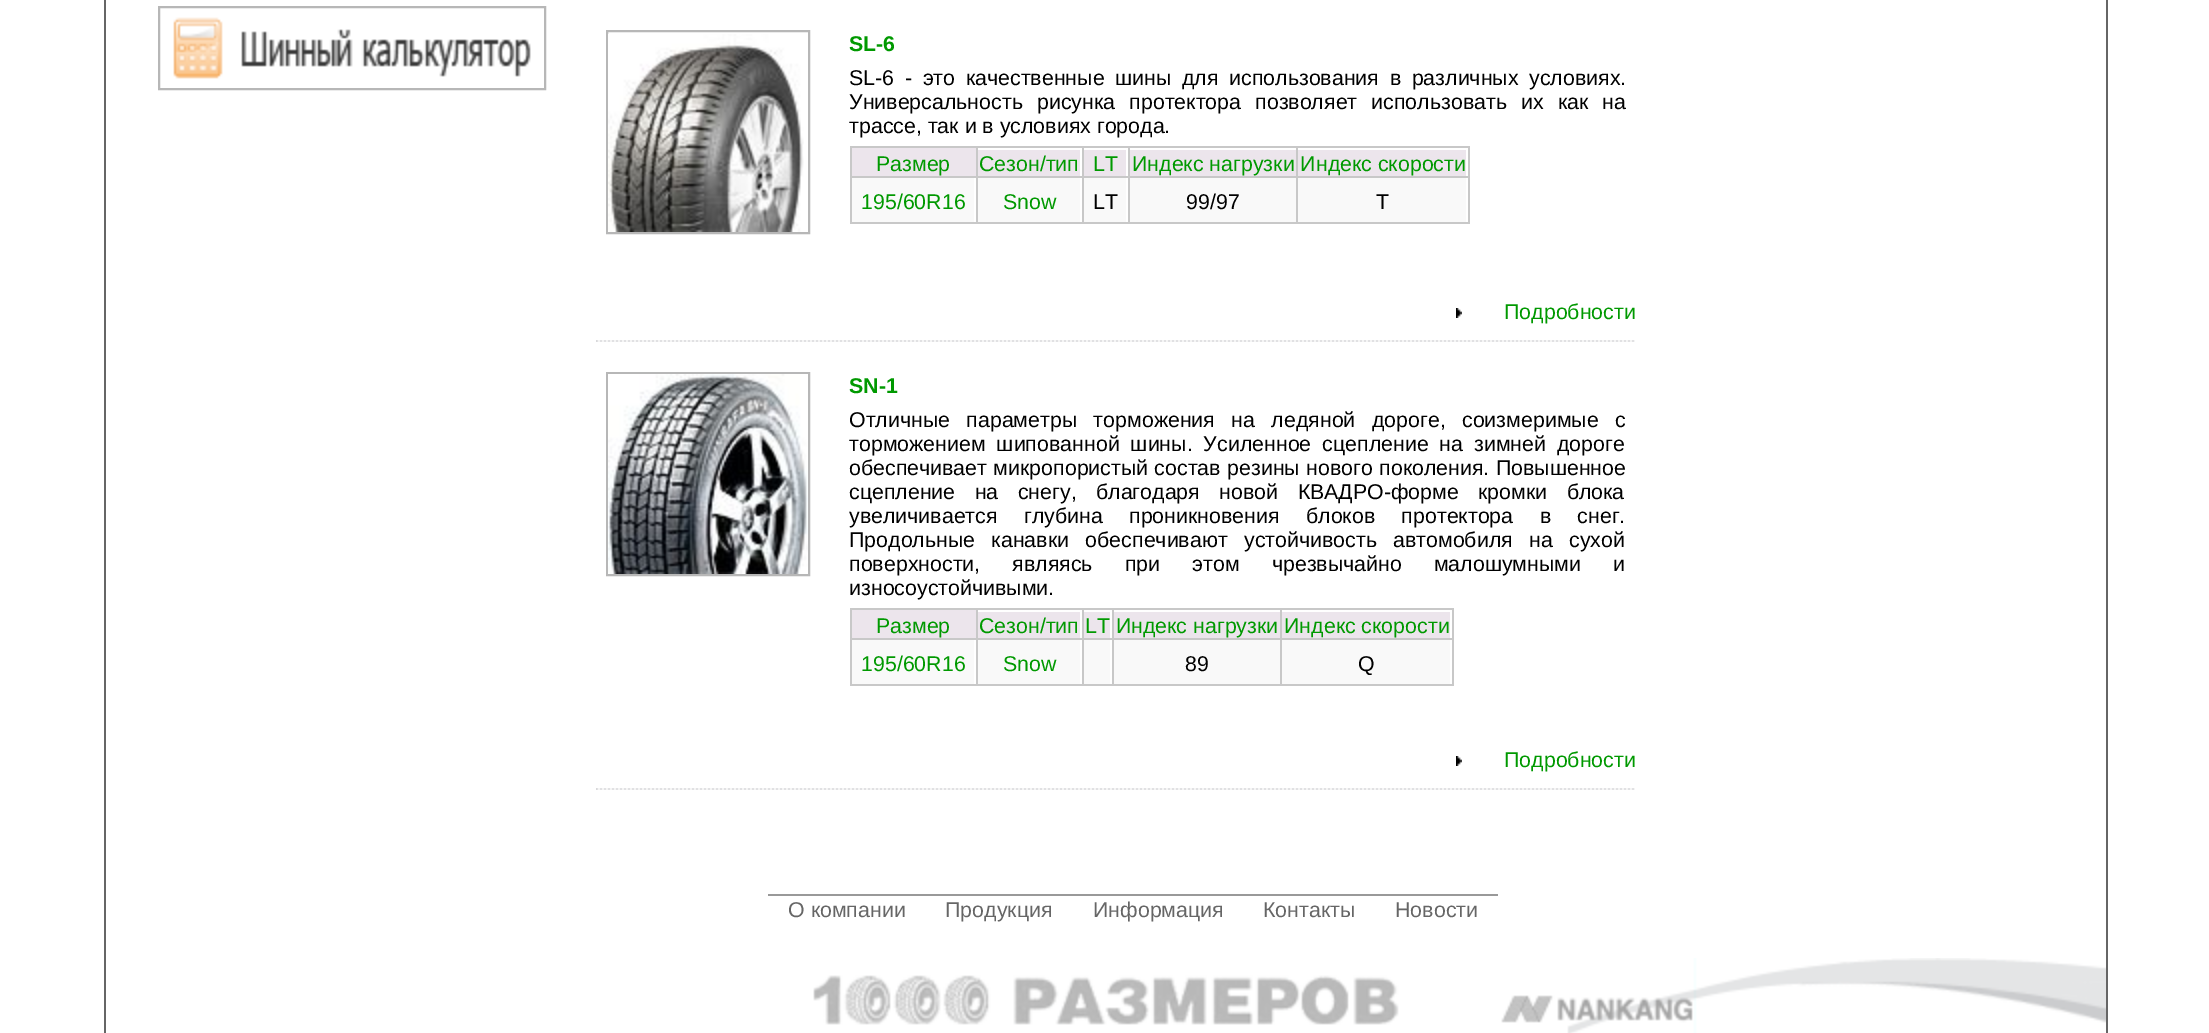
%!PS
<< /PageSize [2209 1033] >> setpagedevice
/mt/moveto load def
/lw/setlinewidth load def
/co { dup -16 bitshift 255 div exch dup -8 bitshift 255 and 255 div exch 255 and 255 div setrgbcolor } def
/fn { [ exch dup neg 0 0 3 -1 roll 0 0 ] selectfont } def
/tx { co fn moveto show } def
/bx { co rectfill } def
/im { 5 dict begin { /h /w /y /x /name } { exch def } forall
  gsave x y translate w h scale
  w h 8 [w 0 0 h 0 0] name (r) file false 3 colorimage grestore end } def
0 1033 translate 1 -1 scale
4 setmiterlimit
0 0 2209 1033 16#FFFFFF bx
2106 0 2 1033 16#666666 bx
104 0 2 1033 16#666666 bx
16#B7B7B7 co
2 lw
159 7 386 82 rectstroke
(media/1.raw) 173 17 358 62 im
(media/2.raw) 596 340 1039 2 im
607 31 202 202 rectstroke
(media/3.raw) 608 34 196 198 im
1298 150 168 26 16#ECE5EC bx
850 146 620 2 16#C8C8C8 bx
1468 176 2 48 16#C8C8C8 bx
1468 146 2 32 16#C8C8C8 bx
1296 222 174 2 16#C8C8C8 bx
1296 176 2 48 16#C8C8C8 bx
1296 176 174 2 16#C8C8C8 bx
852 148 124 28 16#ECE5EC bx
1296 146 2 32 16#C8C8C8 bx
1128 222 170 2 16#C8C8C8 bx
1128 176 2 48 16#C8C8C8 bx
1128 176 170 2 16#C8C8C8 bx
1128 146 2 32 16#C8C8C8 bx
1082 222 48 2 16#C8C8C8 bx
1082 176 2 48 16#C8C8C8 bx
1082 176 48 2 16#C8C8C8 bx
1082 146 2 32 16#C8C8C8 bx
976 222 108 2 16#C8C8C8 bx
976 176 2 48 16#C8C8C8 bx
976 176 108 2 16#C8C8C8 bx
976 146 2 32 16#C8C8C8 bx
850 222 128 2 16#C8C8C8 bx
850 176 2 48 16#C8C8C8 bx
850 176 128 2 16#C8C8C8 bx
850 146 2 32 16#C8C8C8 bx
978 150 102 26 16#ECE5EC bx
1084 150 42 26 16#ECE5EC bx
1130 150 166 26 16#ECE5EC bx
852 178 122 44 16#F9F9F9 bx
978 178 102 44 16#F9F9F9 bx
1084 178 42 44 16#F9F9F9 bx
1130 178 166 44 16#F9F9F9 bx
1298 178 168 44 16#F9F9F9 bx
(media/4.raw) 1456 308 6 10 im
(media/2.raw) 596 788 1039 2 im
16#B7B7B7 co
607 373 202 202 rectstroke
(media/5.raw) 608 374 200 200 im
1282 612 168 26 16#ECE5EC bx
850 608 604 2 16#C8C8C8 bx
1452 638 2 48 16#C8C8C8 bx
1452 608 2 32 16#C8C8C8 bx
1280 684 174 2 16#C8C8C8 bx
1280 638 2 48 16#C8C8C8 bx
1280 638 174 2 16#C8C8C8 bx
1084 612 26 26 16#ECE5EC bx
1280 608 2 32 16#C8C8C8 bx
1112 684 170 2 16#C8C8C8 bx
1112 638 2 48 16#C8C8C8 bx
1112 638 170 2 16#C8C8C8 bx
1112 608 2 32 16#C8C8C8 bx
1082 684 32 2 16#C8C8C8 bx
1082 638 2 48 16#C8C8C8 bx
1082 638 32 2 16#C8C8C8 bx
1114 612 166 26 16#ECE5EC bx
852 610 124 28 16#ECE5EC bx
1082 608 2 32 16#C8C8C8 bx
976 684 108 2 16#C8C8C8 bx
976 638 2 48 16#C8C8C8 bx
976 638 108 2 16#C8C8C8 bx
976 608 2 32 16#C8C8C8 bx
850 684 128 2 16#C8C8C8 bx
850 638 2 48 16#C8C8C8 bx
850 638 128 2 16#C8C8C8 bx
850 608 2 32 16#C8C8C8 bx
978 612 102 26 16#ECE5EC bx
852 640 122 44 16#F9F9F9 bx
978 640 102 44 16#F9F9F9 bx
1084 640 26 44 16#F9F9F9 bx
1114 640 166 44 16#F9F9F9 bx
1282 640 168 44 16#F9F9F9 bx
(media/4.raw) 1456 756 6 10 im
(media/6.raw) 813 958 1293 75 im
768 894 730 2 16#999999 bx
(SL-6) 849 51 /LiberationSans-Bold 21.35 16#009900 tx
/LiberationSans-Regular 21.35 fn
16#000000 co
849 85 mt 4.75 0 32 (SL-6 - это качественные шины для использования в различных условиях.) widthshow
849 109 mt 8.25 0 32 (Универсальность рисунка протектора позволяет использовать их как на) widthshow
(трассе, так и в условиях города.) 849 133 /LiberationSans-Regular 21.35 16#000000 tx
(Размер) 876 171 /LiberationSans-Regular 21.35 16#009900 tx
(Сезон/тип) 979 171 /LiberationSans-Regular 21.35 16#009900 tx
(LT) 1093 171 /LiberationSans-Regular 21.35 16#009900 tx
(Индекс нагрузки Индекс скорости) 1132 171 /LiberationSans-Regular 21.35 16#009900 tx
(195/60R16) 861 209 /LiberationSans-Regular 21.35 16#009900 tx
(Snow) 1003 209 /LiberationSans-Regular 21.35 16#009900 tx
(LT) 1093 209 /LiberationSans-Regular 21.35 16#000000 tx
(99/97) 1186 209 /LiberationSans-Regular 21.35 16#000000 tx
(T) 1376 209 /LiberationSans-Regular 21.35 16#000000 tx
(Подробности) 1504 319 /LiberationSans-Regular 21.35 16#009900 tx
(SN-1) 849 393 /LiberationSans-Bold 21.35 16#009900 tx
/LiberationSans-Regular 21.35 fn
16#000000 co
849 427 mt 10.5 0 32 (Отличные параметры торможения на ледяной дороге, соизмеримые с) widthshow
849 451 mt 5 0 32 (торможением шипованной шины. Усиленное сцепление на зимней дороге) widthshow
849 475 mt .5 0 32 (обеспечивает микропористый состав резины нового поколения. Повышенное) widthshow
849 499 mt 13.5 0 32 (сцепление на снегу, благодаря новой КВАДРО-форме кромки блока) widthshow
849 523 mt 20.5 0 32 (увеличивается глубина проникновения блоков протектора в снег.) widthshow
849 547 mt 10.5 0 32 (Продольные канавки обеспечивают устойчивость автомобиля на сухой) widthshow
849 571 mt 26.25 0 32 (поверхности, являясь при этом чрезвычайно малошумными и) widthshow
(износоустойчивыми.) 849 595 /LiberationSans-Regular 21.35 16#000000 tx
(Размер) 876 633 /LiberationSans-Regular 21.35 16#009900 tx
(Сезон/тип LT Индекс нагрузки Индекс скорости) 979 633 /LiberationSans-Regular 21.35 16#009900 tx
(195/60R16) 861 671 /LiberationSans-Regular 21.35 16#009900 tx
(Snow) 1003 671 /LiberationSans-Regular 21.35 16#009900 tx
(89) 1185 671 /LiberationSans-Regular 21.35 16#000000 tx
(Q) 1358 671 /LiberationSans-Regular 21.35 16#000000 tx
(Подробности) 1504 767 /LiberationSans-Regular 21.35 16#009900 tx
(О компании) 788 917 /LiberationSans-Regular 21.35 16#666666 tx
(Продукция) 945 917 /LiberationSans-Regular 21.35 16#666666 tx
(Информация) 1093 917 /LiberationSans-Regular 21.35 16#666666 tx
(Контакты) 1263 917 /LiberationSans-Regular 21.35 16#666666 tx
(Новости) 1395 917 /LiberationSans-Regular 21.35 16#666666 tx
showpage
